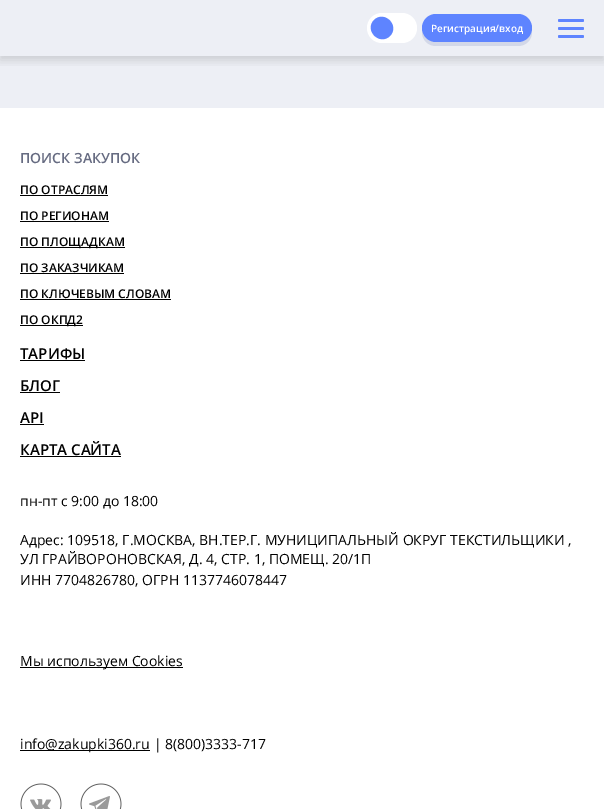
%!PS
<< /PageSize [604 809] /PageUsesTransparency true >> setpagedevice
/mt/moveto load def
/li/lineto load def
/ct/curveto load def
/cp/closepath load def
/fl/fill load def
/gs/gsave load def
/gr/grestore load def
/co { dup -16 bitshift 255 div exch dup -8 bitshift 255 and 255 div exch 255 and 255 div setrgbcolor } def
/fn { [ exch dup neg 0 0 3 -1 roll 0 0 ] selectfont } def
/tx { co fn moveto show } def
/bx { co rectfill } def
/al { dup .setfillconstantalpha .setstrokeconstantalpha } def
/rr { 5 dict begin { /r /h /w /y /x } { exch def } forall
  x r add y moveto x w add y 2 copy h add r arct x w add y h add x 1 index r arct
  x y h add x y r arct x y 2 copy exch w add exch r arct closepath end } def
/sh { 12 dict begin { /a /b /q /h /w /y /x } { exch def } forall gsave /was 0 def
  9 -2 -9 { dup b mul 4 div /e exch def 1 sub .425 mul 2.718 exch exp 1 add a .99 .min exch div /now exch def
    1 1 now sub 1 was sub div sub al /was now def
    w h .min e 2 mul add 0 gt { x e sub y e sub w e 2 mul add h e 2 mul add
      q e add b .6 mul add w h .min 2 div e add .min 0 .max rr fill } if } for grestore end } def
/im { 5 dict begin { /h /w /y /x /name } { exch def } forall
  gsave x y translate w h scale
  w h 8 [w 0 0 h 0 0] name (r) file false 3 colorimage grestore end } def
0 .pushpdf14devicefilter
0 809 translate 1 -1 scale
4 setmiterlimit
0 0 604 809 16#EDEFF5 bx
gs
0 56 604 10 rectclip
16#000000 co
0 4 604 56 0 5 .15 sh
gr
16#FFFFFF co
367 13 50 30 15 rr fl
16#5E84FF co
374 20 mt 384.5 10 400 25.5 390 36 ct 379.5 46 364 30.5 374 20 ct cp fl
16#D3D8E8 co
422 30 mt 422 32 li 422 40 428 46 436 46 ct 518 46 li 526 46 532 40 532 32 ct 532 30 li 531 37 525 42 518 42 ct 436 42 li 429 42 423 37 422 30 ct cp fl
16#5E84FF co
422 14 110 28 14 rr fl
558 19 26 3 1.5 rr fl
558 27 26 3 1.5 rr fl
558 35 26 3 1.5 rr fl
0 108 604 701 16#FFFFFF bx
20 195 88 1 16#000000 bx
20 221 89 1 16#000000 bx
20 247 105 1 16#000000 bx
20 273 104 1 16#000000 bx
20 299 151 1 16#000000 bx
20 325 63 1 16#000000 bx
20 360 65 1 16#000000 bx
20 392 40 1 16#000000 bx
20 424 24 1 16#000000 bx
20 456 101 1 16#000000 bx
20 667 163 1 16#000000 bx
20 750 130 1 16#000000 bx
(media/1.raw) 20 783 42 26 im
(media/2.raw) 80 783 42 26 im
(Регистрация/вход) 431 32 /OpenSans-SemiBold 10 16#FFFFFF tx
(ПОИСК ЗАКУПОК) 20 163 /OpenSans-SemiBold 14 16#676C82 tx
(ПО ОТРАСЛЯМ) 20 194 /OpenSans-SemiBold 12 16#000000 tx
(ПО РЕГИОНАМ) 20 220 /OpenSans-SemiBold 12 16#000000 tx
(ПО ПЛОЩАДКАМ) 20 246 /OpenSans-SemiBold 12 16#000000 tx
(ПО ЗАКАЗЧИКАМ) 20 272 /OpenSans-SemiBold 12 16#000000 tx
(ПО КЛЮЧЕВЫМ СЛОВАМ) 20 298 /OpenSans-SemiBold 12 16#000000 tx
(ПО ОКПД2) 20 324 /OpenSans-SemiBold 12 16#000000 tx
(ТАРИФЫ) 20 359 /OpenSans-SemiBold 15 16#000000 tx
(БЛОГ) 20 391 /OpenSans-SemiBold 15 16#000000 tx
(API) 20 423 /OpenSans-SemiBold 15 16#000000 tx
(КАРТА САЙТА) 20 455 /OpenSans-SemiBold 15 16#000000 tx
(пн-пт с 9:00 до 18:00) 20 506 /OpenSans-Regular 14 16#000000 tx
(Адрес: 109518, Г.МОСКВА, ВН.ТЕР.Г. МУНИЦИПАЛЬНЫЙ ОКРУГ ТЕКСТИЛЬЩИКИ ,) 20 545 /OpenSans-Regular 14 16#000000 tx
(УЛ ГРАЙВОРОНОВСКАЯ, Д. 4, СТР. 1, ПОМЕЩ. 20/1П) 20 564 /OpenSans-Regular 14 16#000000 tx
(ИНН 7704826780, ОГРН 1137746078447) 20 585 /OpenSans-Regular 14 16#000000 tx
(Мы используем Cookies) 20 666 /OpenSans-Regular 14 16#000000 tx
(info@zakupki360.ru) 20 749 /OpenSans-Regular 14 16#000000 tx
(|) 154 749 /OpenSans-Regular 14 16#000000 tx
(8\(800\)3333-717) 165 749 /OpenSans-Regular 14 16#000000 tx
.poppdf14devicefilter showpage
